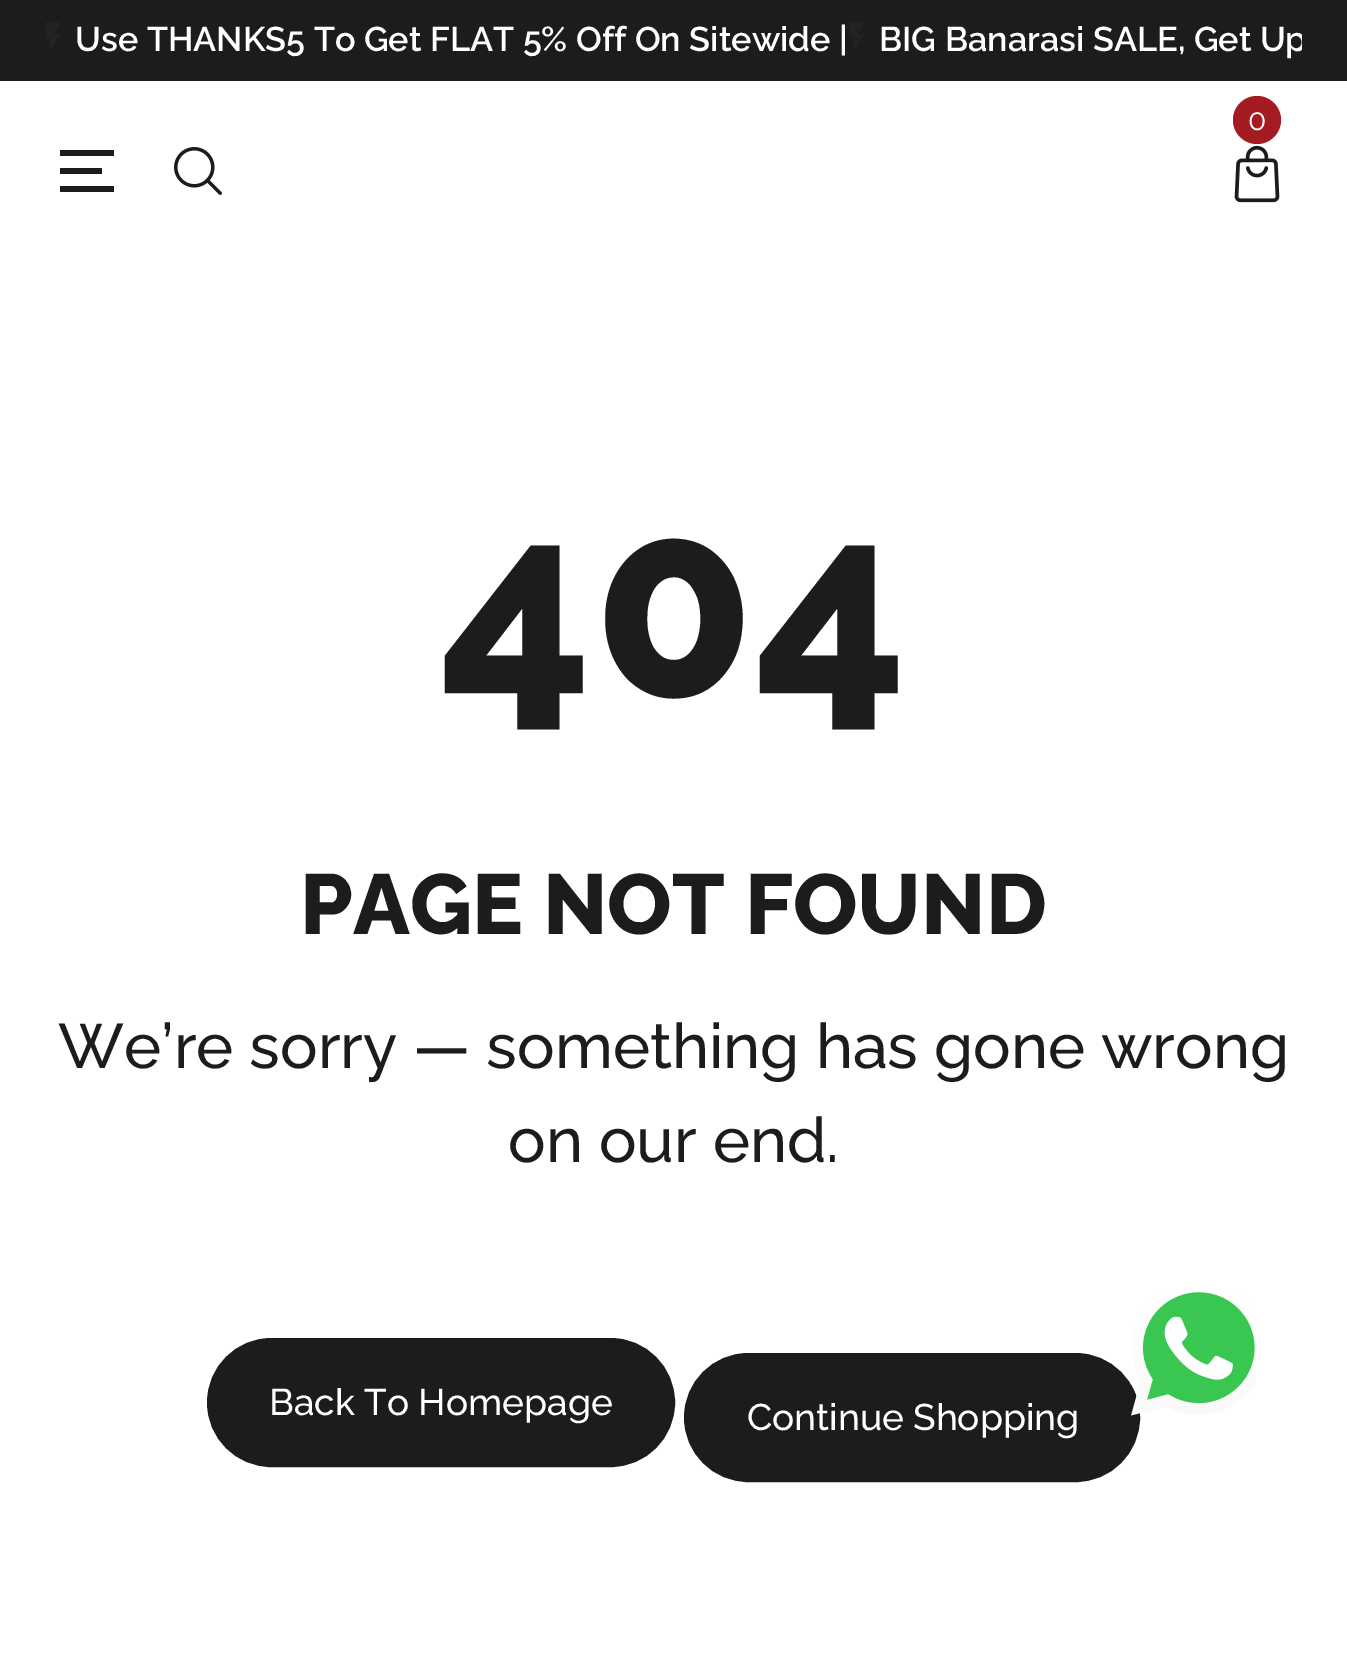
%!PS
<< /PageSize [1347 1663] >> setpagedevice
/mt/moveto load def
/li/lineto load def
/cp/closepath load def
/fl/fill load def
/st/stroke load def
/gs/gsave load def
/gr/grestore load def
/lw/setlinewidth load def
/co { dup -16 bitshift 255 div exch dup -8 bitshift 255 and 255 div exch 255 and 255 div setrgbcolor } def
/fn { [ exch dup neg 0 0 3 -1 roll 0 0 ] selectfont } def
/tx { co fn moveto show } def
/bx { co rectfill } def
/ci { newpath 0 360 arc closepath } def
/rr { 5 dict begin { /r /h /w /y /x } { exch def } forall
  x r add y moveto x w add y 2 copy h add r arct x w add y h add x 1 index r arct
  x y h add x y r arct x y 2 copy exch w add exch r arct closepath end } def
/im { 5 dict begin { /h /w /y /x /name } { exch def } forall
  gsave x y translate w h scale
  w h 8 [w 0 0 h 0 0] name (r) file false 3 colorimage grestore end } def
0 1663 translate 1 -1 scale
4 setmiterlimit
0 0 1347 1663 16#FFFFFF bx
0 0 1347 81 16#1C1C1C bx
16#222222 co
45 22 mt 60.5 22 li 54 34 li 60.5 34 li 49.5 52.5 li 49.5 38.5 li 45 38.5 li cp fl
849 22 mt 864.5 22 li 858 34 li 864.5 34 li 853.5 52.5 li 853.5 38.5 li 849 38.5 li cp fl
16#A41C21 co
1257 120 24 ci fl
(media/1.raw) 1234 145 46 58 im
60 168 42 6 16#1C1C1C bx
60 150 54 6 16#1C1C1C bx
60 186 54 6 16#1C1C1C bx
(media/2.raw) 174 147 48 48 im
208.5 1339.5 465 126 63 rr gs fl gr
3 lw
st
685.5 1354.5 453 126 63 rr gs fl gr
st
(media/3.raw) 1131 1292 125 124 im
(Use THANKS5 To Get FLAT 5% Off On Sitewide |) 75 51 /Raleway-SemiBold 34.3 16#FFFFFF tx
gs
45 15 1257 51 rectclip
(BIG Banarasi SALE, Get Up) 879 51 /Raleway-SemiBold 34.3 16#FFFFFF tx
gr
(0) 1248 130 /Raleway-Regular 30 16#FFFFFF tx
(404) 440 696 /Raleway-ExtraBold 264 16#1C1C1C tx
(PAGE NOT FOUND) 300 934 /Raleway-ExtraBold 85 16#1C1C1C tx
(We’re sorry — something has gone wrong) 58 1068 /Raleway-Medium 62.8 16#1C1C1C tx
(on our end.) 508 1162 /Raleway-Medium 62.8 16#1C1C1C tx
(Back To Homepage) 269 1415 /Raleway-Medium 37 16#FFFFFF tx
(Continue Shopping) 747 1430 /Raleway-Medium 37 16#FFFFFF tx
showpage
